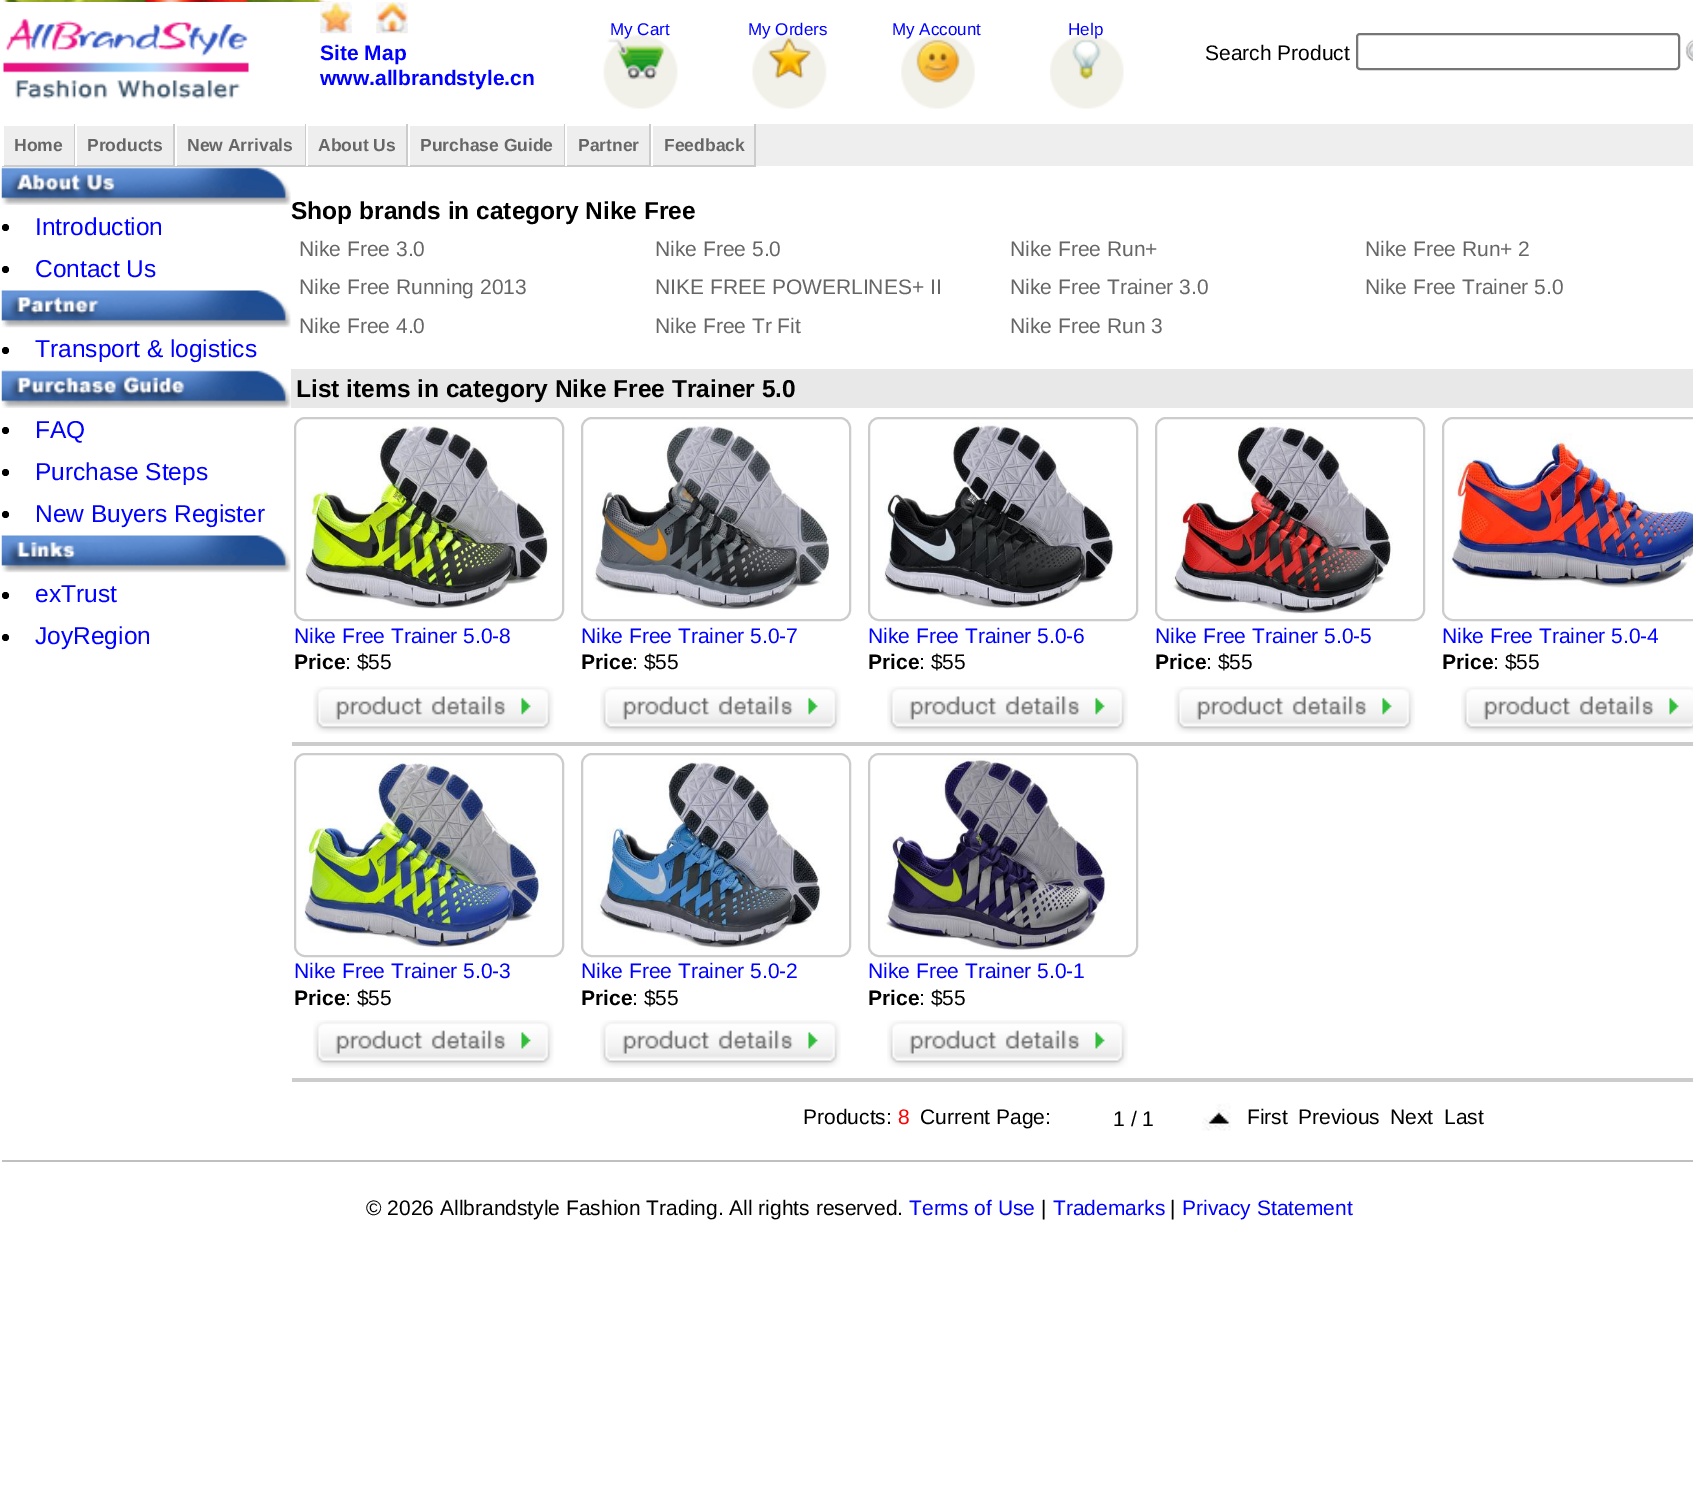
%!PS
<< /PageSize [1693 1510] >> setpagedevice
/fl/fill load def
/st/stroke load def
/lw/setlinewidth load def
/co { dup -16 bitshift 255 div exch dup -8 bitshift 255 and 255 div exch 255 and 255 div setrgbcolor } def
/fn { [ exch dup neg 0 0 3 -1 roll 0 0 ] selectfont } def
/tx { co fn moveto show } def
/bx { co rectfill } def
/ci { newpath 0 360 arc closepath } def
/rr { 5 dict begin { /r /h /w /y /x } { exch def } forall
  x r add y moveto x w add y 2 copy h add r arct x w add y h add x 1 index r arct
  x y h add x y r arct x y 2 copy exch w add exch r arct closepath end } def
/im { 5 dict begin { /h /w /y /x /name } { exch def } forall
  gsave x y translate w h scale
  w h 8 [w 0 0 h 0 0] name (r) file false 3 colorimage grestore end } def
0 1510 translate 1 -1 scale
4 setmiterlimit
0 0 1693 1510 16#FFFFFF bx
(media/1.raw) 3 0 341 240 im
3 2 341 122 16#FFFFFF bx
(media/2.raw) 3 18 246 81 im
(media/3.raw) 603 34 75 75 im
(media/4.raw) 752 34 75 75 im
(media/5.raw) 901 34 74 75 im
(media/6.raw) 1050 34 74 75 im
(media/7.raw) 320 1 32 33 im
(media/8.raw) 376 2 32 32 im
16#767676 co
2 lw
1357 34 322 35 3 rr st
(media/9.raw) 1685 39 8 23 im
4 124 1689 42 16#EEEEEE bx
2 124 754 2 16#FFFFFF bx
74 124 1 42 16#CCCCCC bx
2 165 73 2 16#CCCCCC bx
2 165 2 1 16#FFFFFF bx
173 124 2 42 16#CCCCCC bx
75 165 100 2 16#CCCCCC bx
75 124 2 42 16#FFFFFF bx
305 124 1 42 16#CCCCCC bx
175 165 131 2 16#CCCCCC bx
175 124 2 42 16#FFFFFF bx
406 124 2 42 16#CCCCCC bx
306 165 102 2 16#CCCCCC bx
306 124 2 42 16#FFFFFF bx
564 124 1 42 16#CCCCCC bx
408 165 157 2 16#CCCCCC bx
408 124 2 42 16#FFFFFF bx
649 124 2 42 16#CCCCCC bx
565 165 86 2 16#CCCCCC bx
565 124 2 42 16#FFFFFF bx
754 124 2 42 16#CCCCCC bx
651 165 105 2 16#CCCCCC bx
651 124 2 42 16#FFFFFF bx
71 167 162 73 16#FFFFFF bx
(media/10.raw) 1 167 290 38 im
16#000000 co
5.5 227.5 3.5 ci fl
5.5 269.5 3.5 ci fl
(media/11.raw) 1 290 290 38 im
5.5 350.5 3.5 ci fl
(media/12.raw) 1 370 290 38 im
5.5 430.5 3.5 ci fl
5.5 472.5 3.5 ci fl
5.5 514.5 3.5 ci fl
(media/13.raw) 1 535 290 38 im
5.5 595.5 3.5 ci fl
5.5 637.5 3.5 ci fl
291 369 1402 39 16#E8E8E8 bx
292 742 1401 4 16#CCCCCC bx
295 418 268 202 10 rr st
(media/14.raw) 305 422 243 187 im
(media/15.raw) 313 686 241 48 im
582 418 268 202 10 rr st
(media/16.raw) 593 422 237 188 im
(media/15.raw) 600 686 241 48 im
869 418 268 202 10 rr st
(media/17.raw) 884 422 232 187 im
(media/18.raw) 887 686 241 48 im
1156 418 268 202 10 rr st
(media/19.raw) 1171 423 222 191 im
(media/20.raw) 1174 686 241 48 im
1443 418 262 202 10 rr st
(media/21.raw) 1447 433 246 155 im
(media/22.raw) 1461 686 232 48 im
292 1078 1401 4 16#CCCCCC bx
295 754 268 202 10 rr st
(media/23.raw) 304 758 240 192 im
(media/24.raw) 313 1020 241 48 im
582 754 268 202 10 rr st
(media/25.raw) 597 758 225 192 im
(media/24.raw) 600 1020 241 48 im
869 754 268 202 10 rr st
(media/26.raw) 884 758 227 194 im
(media/27.raw) 887 1020 241 48 im
(media/28.raw) 1202 1103 29 28 im
2 1160 1691 2 16#C0C0C0 bx
(My Cart) 610 35 /LiberationSans-Regular 17 16#0000FF tx
(My Orders) 748 35 /LiberationSans-Regular 17 16#0000FF tx
(My Account) 892 35 /LiberationSans-Regular 17 16#0000FF tx
(Help) 1068 35 /LiberationSans-Regular 17 16#0000FF tx
(Site Map) 320 60 /LiberationSans-Bold 21 16#0000FF tx
(www.allbrandstyle.cn) 320 85 /LiberationSans-Bold 21 16#0000FF tx
(Search Product) 1205 60 /LiberationSans-Regular 21 16#000000 tx
(Home) 14 151 /LiberationSans-Bold 17.5 16#666666 tx
(Products) 87 151 /LiberationSans-Bold 17.5 16#666666 tx
(New Arrivals) 187 151 /LiberationSans-Bold 17.5 16#666666 tx
(About Us) 318 151 /LiberationSans-Bold 17.5 16#666666 tx
(Purchase Guide) 420 151 /LiberationSans-Bold 17.5 16#666666 tx
(Partner) 578 151 /LiberationSans-Bold 17.5 16#666666 tx
(Feedback) 664 151 /LiberationSans-Bold 17.5 16#666666 tx
(Introduction) 35 235 /LiberationSans-Regular 24.5 16#0000FF tx
(Contact Us) 35 277 /LiberationSans-Regular 24.5 16#0000FF tx
(Transport & logistics) 35 357 /LiberationSans-Regular 24.5 16#0000FF tx
(FAQ) 35 438 /LiberationSans-Regular 24.5 16#0000FF tx
(Purchase Steps) 35 480 /LiberationSans-Regular 24.5 16#0000FF tx
(New Buyers Register) 35 522 /LiberationSans-Regular 24.5 16#0000FF tx
(exTrust) 35 602 /LiberationSans-Regular 24.5 16#0000FF tx
(JoyRegion) 35 644 /LiberationSans-Regular 24.5 16#0000FF tx
(Shop brands in category Nike Free) 291 219 /LiberationSans-Bold 24.5 16#000000 tx
(Nike Free 3.0) 299 256 /LiberationSans-Regular 21 16#666666 tx
(Nike Free 5.0) 655 256 /LiberationSans-Regular 21 16#666666 tx
(Nike Free Run+) 1010 256 /LiberationSans-Regular 21 16#666666 tx
(Nike Free Run+ 2) 1365 256 /LiberationSans-Regular 21 16#666666 tx
(Nike Free Running 2013) 299 294 /LiberationSans-Regular 21 16#666666 tx
(NIKE FREE POWERLINES+ II) 655 294 /LiberationSans-Regular 21 16#666666 tx
(Nike Free Trainer 3.0) 1010 294 /LiberationSans-Regular 21 16#666666 tx
(Nike Free Trainer 5.0) 1365 294 /LiberationSans-Regular 21 16#666666 tx
(Nike Free 4.0) 299 333 /LiberationSans-Regular 21 16#666666 tx
(Nike Free Tr Fit) 655 333 /LiberationSans-Regular 21 16#666666 tx
(Nike Free Run 3) 1010 333 /LiberationSans-Regular 21 16#666666 tx
(List items in category Nike Free Trainer 5.0) 296 397 /LiberationSans-Bold 24.5 16#000000 tx
(Nike Free Trainer 5.0-8) 294 643 /LiberationSans-Regular 21 16#0000FF tx
(Price) 294 669 /LiberationSans-Bold 21 16#000000 tx
(: $55) 345 669 /LiberationSans-Regular 21 16#000000 tx
(Nike Free Trainer 5.0-7) 581 643 /LiberationSans-Regular 21 16#0000FF tx
(Price) 581 669 /LiberationSans-Bold 21 16#000000 tx
(: $55) 632 669 /LiberationSans-Regular 21 16#000000 tx
(Nike Free Trainer 5.0-6) 868 643 /LiberationSans-Regular 21 16#0000FF tx
(Price) 868 669 /LiberationSans-Bold 21 16#000000 tx
(: $55) 919 669 /LiberationSans-Regular 21 16#000000 tx
(Nike Free Trainer 5.0-5) 1155 643 /LiberationSans-Regular 21 16#0000FF tx
(Price) 1155 669 /LiberationSans-Bold 21 16#000000 tx
(: $55) 1206 669 /LiberationSans-Regular 21 16#000000 tx
(Nike Free Trainer 5.0-4) 1442 643 /LiberationSans-Regular 21 16#0000FF tx
(Price) 1442 669 /LiberationSans-Bold 21 16#000000 tx
(: $55) 1493 669 /LiberationSans-Regular 21 16#000000 tx
(Nike Free Trainer 5.0-3) 294 978 /LiberationSans-Regular 21 16#0000FF tx
(Price) 294 1005 /LiberationSans-Bold 21 16#000000 tx
(: $55) 345 1005 /LiberationSans-Regular 21 16#000000 tx
(Nike Free Trainer 5.0-2) 581 978 /LiberationSans-Regular 21 16#0000FF tx
(Price) 581 1005 /LiberationSans-Bold 21 16#000000 tx
(: $55) 632 1005 /LiberationSans-Regular 21 16#000000 tx
(Nike Free Trainer 5.0-1) 868 978 /LiberationSans-Regular 21 16#0000FF tx
(Price) 868 1005 /LiberationSans-Bold 21 16#000000 tx
(: $55) 919 1005 /LiberationSans-Regular 21 16#000000 tx
(Products:) 803 1124 /LiberationSans-Regular 21 16#000000 tx
(8) 898 1124 /LiberationSans-Regular 21 16#FF0000 tx
(Current Page:) 920 1124 /LiberationSans-Regular 21 16#000000 tx
(1 / 1) 1113 1126 /LiberationSans-Regular 21 16#000000 tx
(First) 1247 1124 /LiberationSans-Regular 21 16#000000 tx
(Previous) 1298 1124 /LiberationSans-Regular 21 16#000000 tx
(Next) 1390 1124 /LiberationSans-Regular 21 16#000000 tx
(Last) 1444 1124 /LiberationSans-Regular 21 16#000000 tx
(© 2026 Allbrandstyle Fashion Trading. All rights reserved.) 366 1215 /LiberationSans-Regular 21 16#000000 tx
(Terms of Use) 909 1215 /LiberationSans-Regular 21 16#0000FF tx
(|) 1041 1215 /LiberationSans-Regular 21 16#000000 tx
(Trademarks) 1053 1215 /LiberationSans-Regular 21 16#0000FF tx
(|) 1170 1215 /LiberationSans-Regular 21 16#000000 tx
(Privacy Statement) 1182 1215 /LiberationSans-Regular 21 16#0000FF tx
showpage
